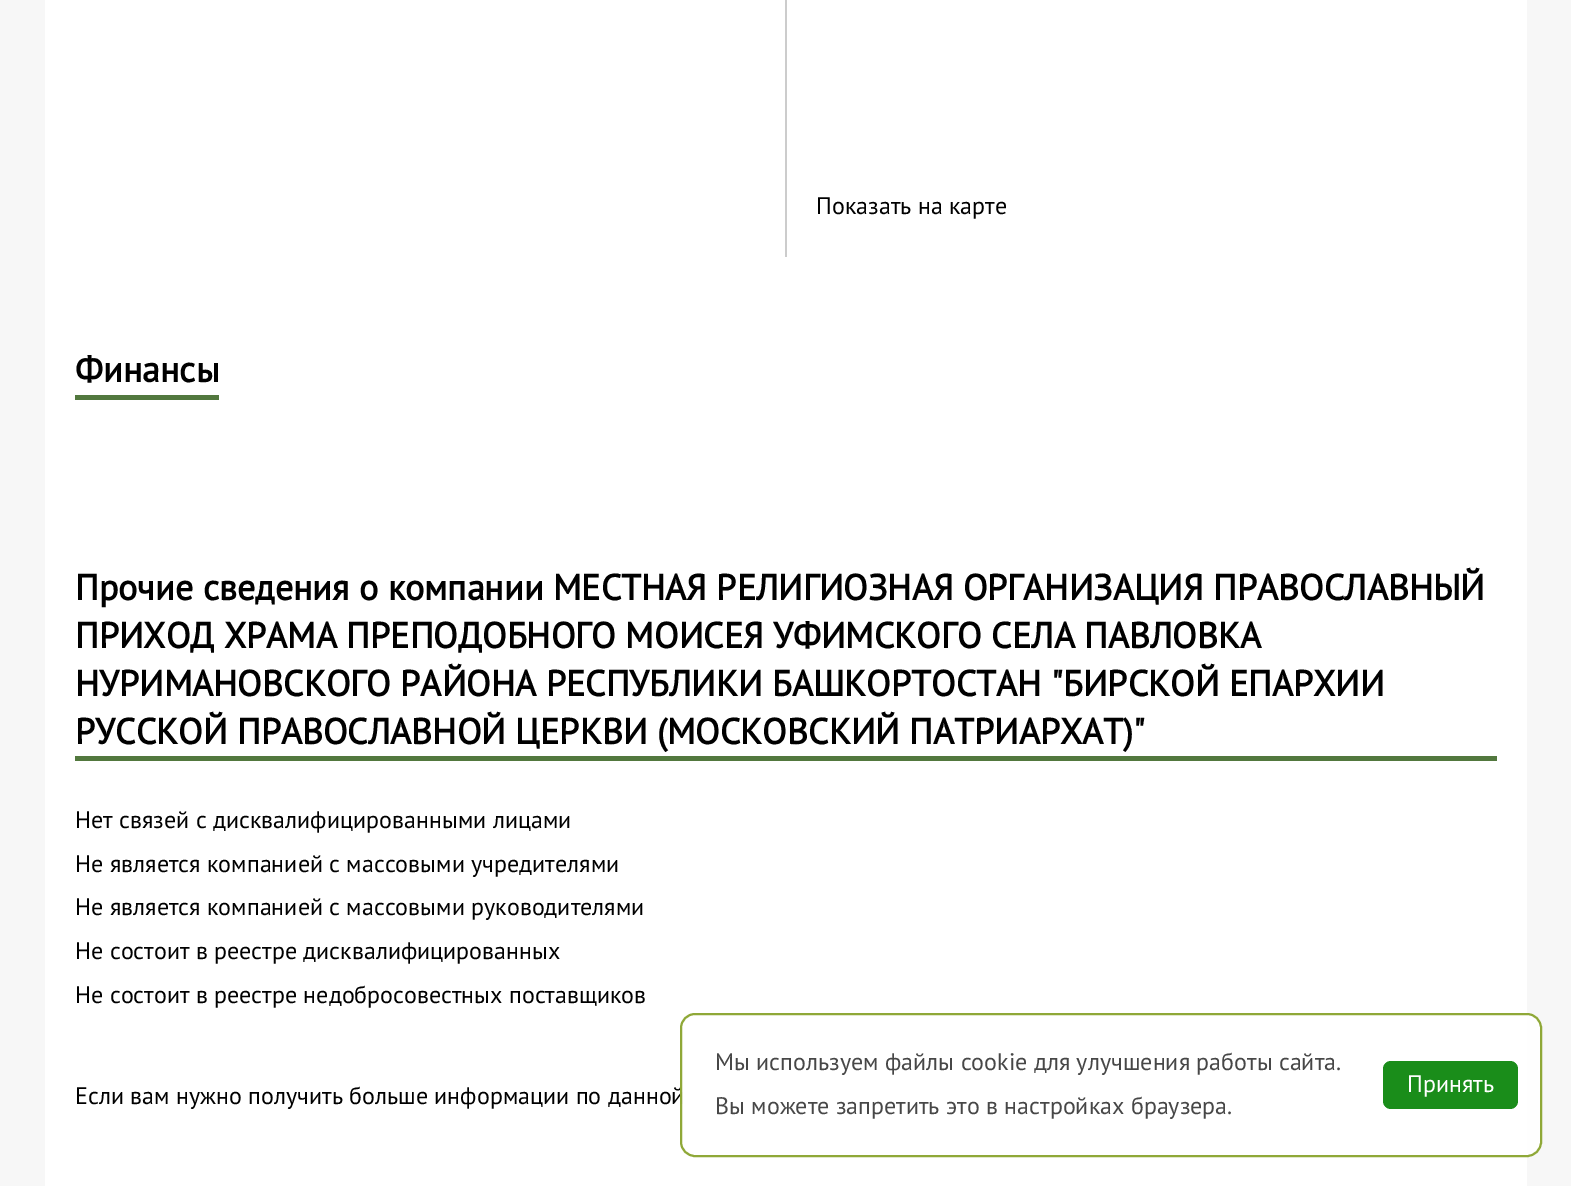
%!PS
<< /PageSize [1571 1186] /PageUsesTransparency true >> setpagedevice
/fl/fill load def
/st/stroke load def
/lw/setlinewidth load def
/co { dup -16 bitshift 255 div exch dup -8 bitshift 255 and 255 div exch 255 and 255 div setrgbcolor } def
/fn { [ exch dup neg 0 0 3 -1 roll 0 0 ] selectfont } def
/tx { co fn moveto show } def
/bx { co rectfill } def
/al { dup .setfillconstantalpha .setstrokeconstantalpha } def
/rr { 5 dict begin { /r /h /w /y /x } { exch def } forall
  x r add y moveto x w add y 2 copy h add r arct x w add y h add x 1 index r arct
  x y h add x y r arct x y 2 copy exch w add exch r arct closepath end } def
0 .pushpdf14devicefilter
0 1186 translate 1 -1 scale
4 setmiterlimit
0 0 1571 1186 16#F7F7F7 bx
45 0 1482 1186 16#FFFFFF bx
785 0 2 257 16#CCCCCC bx
75 395 144 5 16#52783E bx
75 756 1422 5 16#52783E bx
(Показать на карте) 816 214 /PTSans-Regular 24 16#000000 tx
(Финансы) 75 382 /PTSans-Bold 36 16#000000 tx
(Прочие сведения о компании МЕСТНАЯ РЕЛИГИОЗНАЯ ОРГАНИЗАЦИЯ ПРАВОСЛАВНЫЙ) 75 600 /PTSans-Bold 36 16#000000 tx
(ПРИХОД ХРАМА ПРЕПОДОБНОГО МОИСЕЯ УФИМСКОГО СЕЛА ПАВЛОВКА) 75 648 /PTSans-Bold 36 16#000000 tx
(НУРИМАНОВСКОГО РАЙОНА РЕСПУБЛИКИ БАШКОРТОСТАН "БИРСКОЙ ЕПАРХИИ) 75 696 /PTSans-Bold 36 16#000000 tx
(РУССКОЙ ПРАВОСЛАВНОЙ ЦЕРКВИ \(МОСКОВСКИЙ ПАТРИАРХАТ\)") 75 744 /PTSans-Bold 36 16#000000 tx
(Нет связей с дисквалифицированными лицами) 75 828 /PTSans-Regular 24 16#000000 tx
(Не является компанией с массовыми учредителями) 75 872 /PTSans-Regular 24 16#000000 tx
(Не является компанией с массовыми руководителями) 75 915 /PTSans-Regular 24 16#000000 tx
(Не состоит в реестре дисквалифицированных) 75 959 /PTSans-Regular 24 16#000000 tx
(Не состоит в реестре недобросовестных поставщиков) 75 1003 /PTSans-Regular 24 16#000000 tx
(Если вам нужно получить больше информации по данной) 75 1104 /PTSans-Regular 24 16#000000 tx
0.9 al
16#FFFFFF co
680 1013 862 144 15 rr fl
16#839F22 co
2 lw
681 1014 860 142 14 rr st
1 al
(Мы используем файлы cookie для улучшения работы сайта.) 715 1070 /PTSans-Regular 24 16#474747 tx
(Вы можете запретить это в настройках браузера.) 715 1114 /PTSans-Regular 24 16#474747 tx
16#1A8D1A co
1383 1061 135 48 8 rr fl
(Принять) 1407 1092 /PTSans-Regular 24 16#FFFFFF tx
.poppdf14devicefilter showpage
